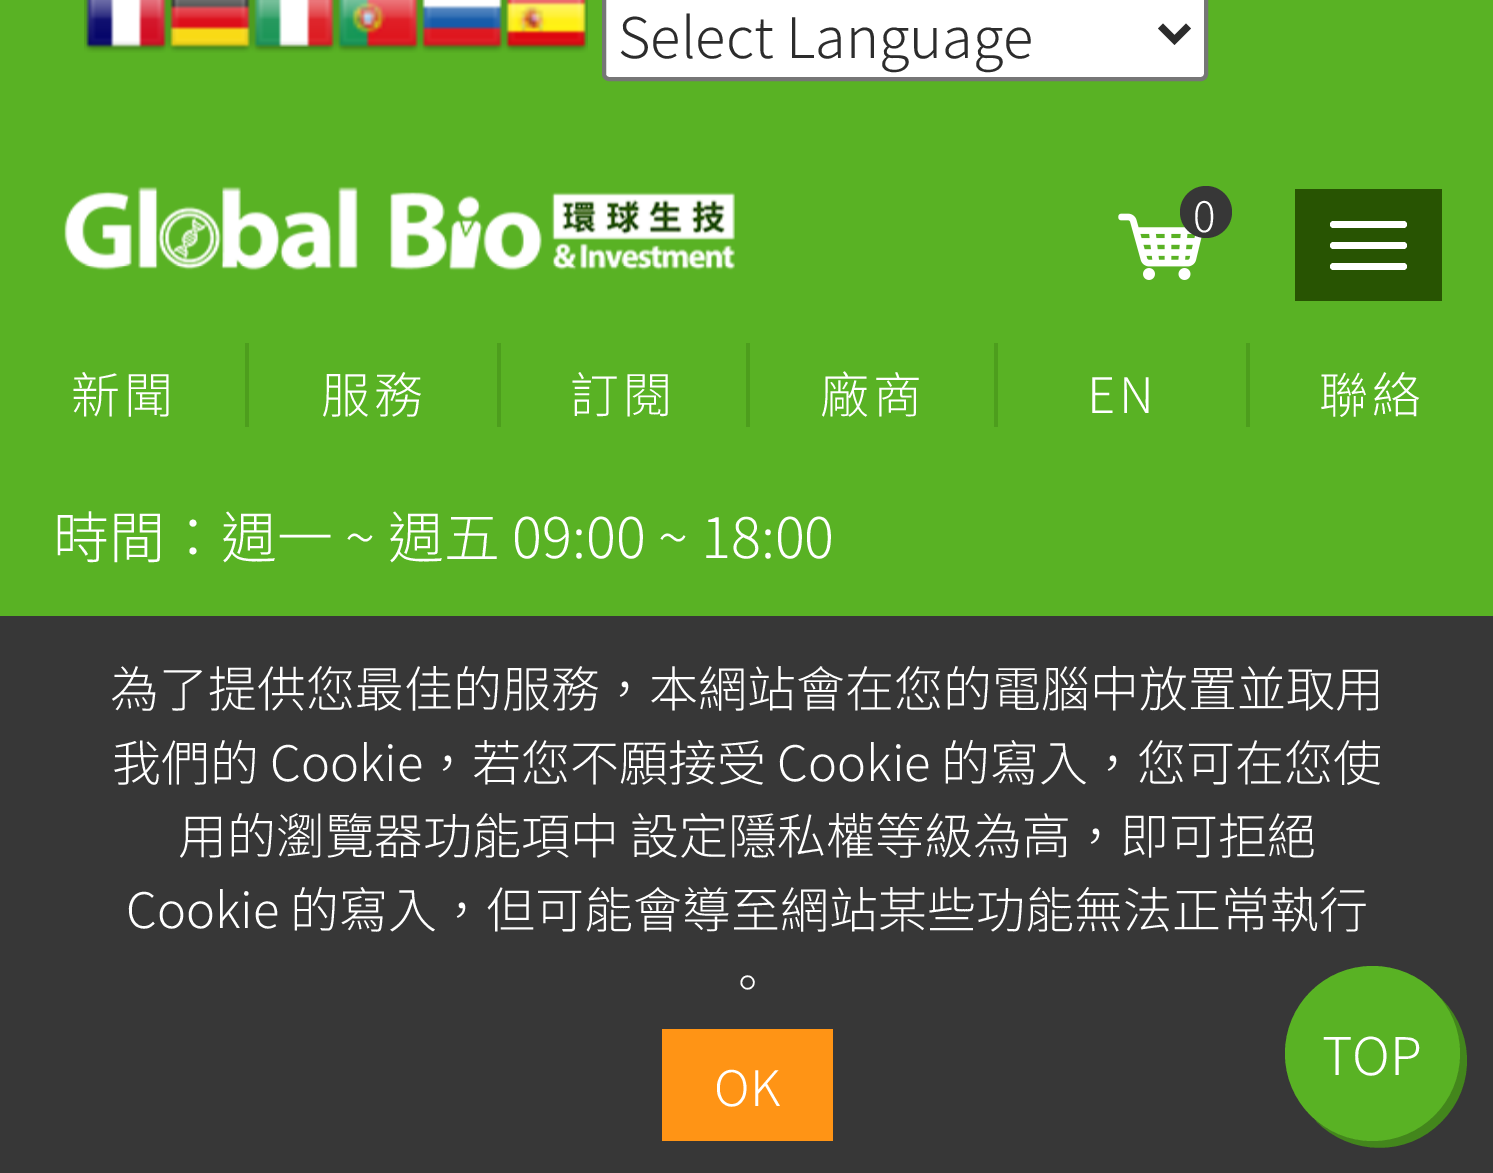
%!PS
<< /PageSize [1493 1173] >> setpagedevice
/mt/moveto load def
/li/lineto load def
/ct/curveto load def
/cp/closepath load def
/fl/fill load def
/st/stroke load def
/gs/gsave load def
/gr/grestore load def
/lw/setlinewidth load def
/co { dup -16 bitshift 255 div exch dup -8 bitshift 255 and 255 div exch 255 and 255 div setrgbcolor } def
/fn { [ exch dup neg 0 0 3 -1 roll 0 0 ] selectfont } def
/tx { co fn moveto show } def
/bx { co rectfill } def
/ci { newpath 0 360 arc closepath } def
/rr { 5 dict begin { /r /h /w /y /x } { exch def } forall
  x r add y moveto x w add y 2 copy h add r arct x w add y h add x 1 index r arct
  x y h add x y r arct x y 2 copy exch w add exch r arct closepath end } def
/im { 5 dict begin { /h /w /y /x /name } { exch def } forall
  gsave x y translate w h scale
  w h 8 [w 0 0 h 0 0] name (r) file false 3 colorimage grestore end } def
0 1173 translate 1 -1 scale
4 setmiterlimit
0 0 1493 1173 16#59B224 bx
(media/1.raw) 84 0 84 53 im
(media/2.raw) 168 0 84 53 im
(media/3.raw) 252 0 84 53 im
(media/4.raw) 336 0 84 53 im
(media/5.raw) 420 0 84 53 im
(media/6.raw) 504 0 84 53 im
16#FFFFFF co
604 -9 602 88 5 rr gs fl gr
16#767676 co
4 lw
st
16#2C2C2C co
7 lw
1160.5 26 mt 1174.5 40 li 1188.5 26 li st
(media/7.raw) 64 186 671 85 im
1295 189 147 112 16#285402 bx
16#FFFFFF co
1330 221 77 7 3.5 rr fl
1330 242 77 7 3.5 rr fl
1330 263 77 7 3.5 rr fl
(media/8.raw) 1118 213 84 67 im
16#373737 co
1206 212 26 ci fl
245 343 4 84 16#4D9E1D bx
497 343 4 84 16#4D9E1D bx
746 343 4 84 16#4D9E1D bx
994 343 4 84 16#4D9E1D bx
1246 343 4 84 16#4D9E1D bx
0 616 1493 557 16#373737 bx
662 1029 171 112 16#FF9415 bx
16#43861C co
1316 1121 mt 1350 1156 1407 1157 1441 1122 ct 1478 1086 1475 1026 1435 993 ct 1468 1027 1468 1082 1434 1115 ct 1402 1147 1351 1149 1316 1121 ct cp fl
16#59B224 co
1372.5 1053.5 87.5 ci fl
(Select Language) 618 58 /NotoSansTC-Light 56 16#2C2C2C tx
/NotoSansTC-Light 42 fn
16#FFFFFF co
1193 232 mt 4 0 (0) ashow
/NotoSansTC-Light 49 fn
71 413 mt 4 0 (新聞) ashow
321 413 mt 4 0 (服務) ashow
570 413 mt 4 0 (訂閱) ashow
820 413 mt 4 0 (廠商) ashow
1087 413 mt 4 0 (EN) ashow
1319 413 mt 4 0 (聯絡) ashow
(時間：週一 ~ 週五 09:00 ~ 18:00) 53 558 /NotoSansTC-Light 56 16#FFFFFF tx
(為了提供您最佳的服務，本網站會在您的電腦中放置並取用) 110 707 /NotoSansTC-Light 49 16#FFFFFF tx
(我們的 Cookie，若您不願接受 Cookie 的寫入，您可在您使) 112 781 /NotoSansTC-Light 49 16#FFFFFF tx
(用的瀏覽器功能項中 設定隱私權等級為高，即可拒絕) 178 854 /NotoSansTC-Light 49 16#FFFFFF tx
(Cookie 的寫入，但可能會導至網站某些功能無法正常執行) 126 928 /NotoSansTC-Light 49 16#FFFFFF tx
(。) 723 1001 /NotoSansTC-Light 49 16#FFFFFF tx
(OK) 714 1106 /NotoSansTC-Light 49 16#FFFFFF tx
(TOP) 1322 1075 /NotoSansTC-Light 52 16#FFFFFF tx
showpage
